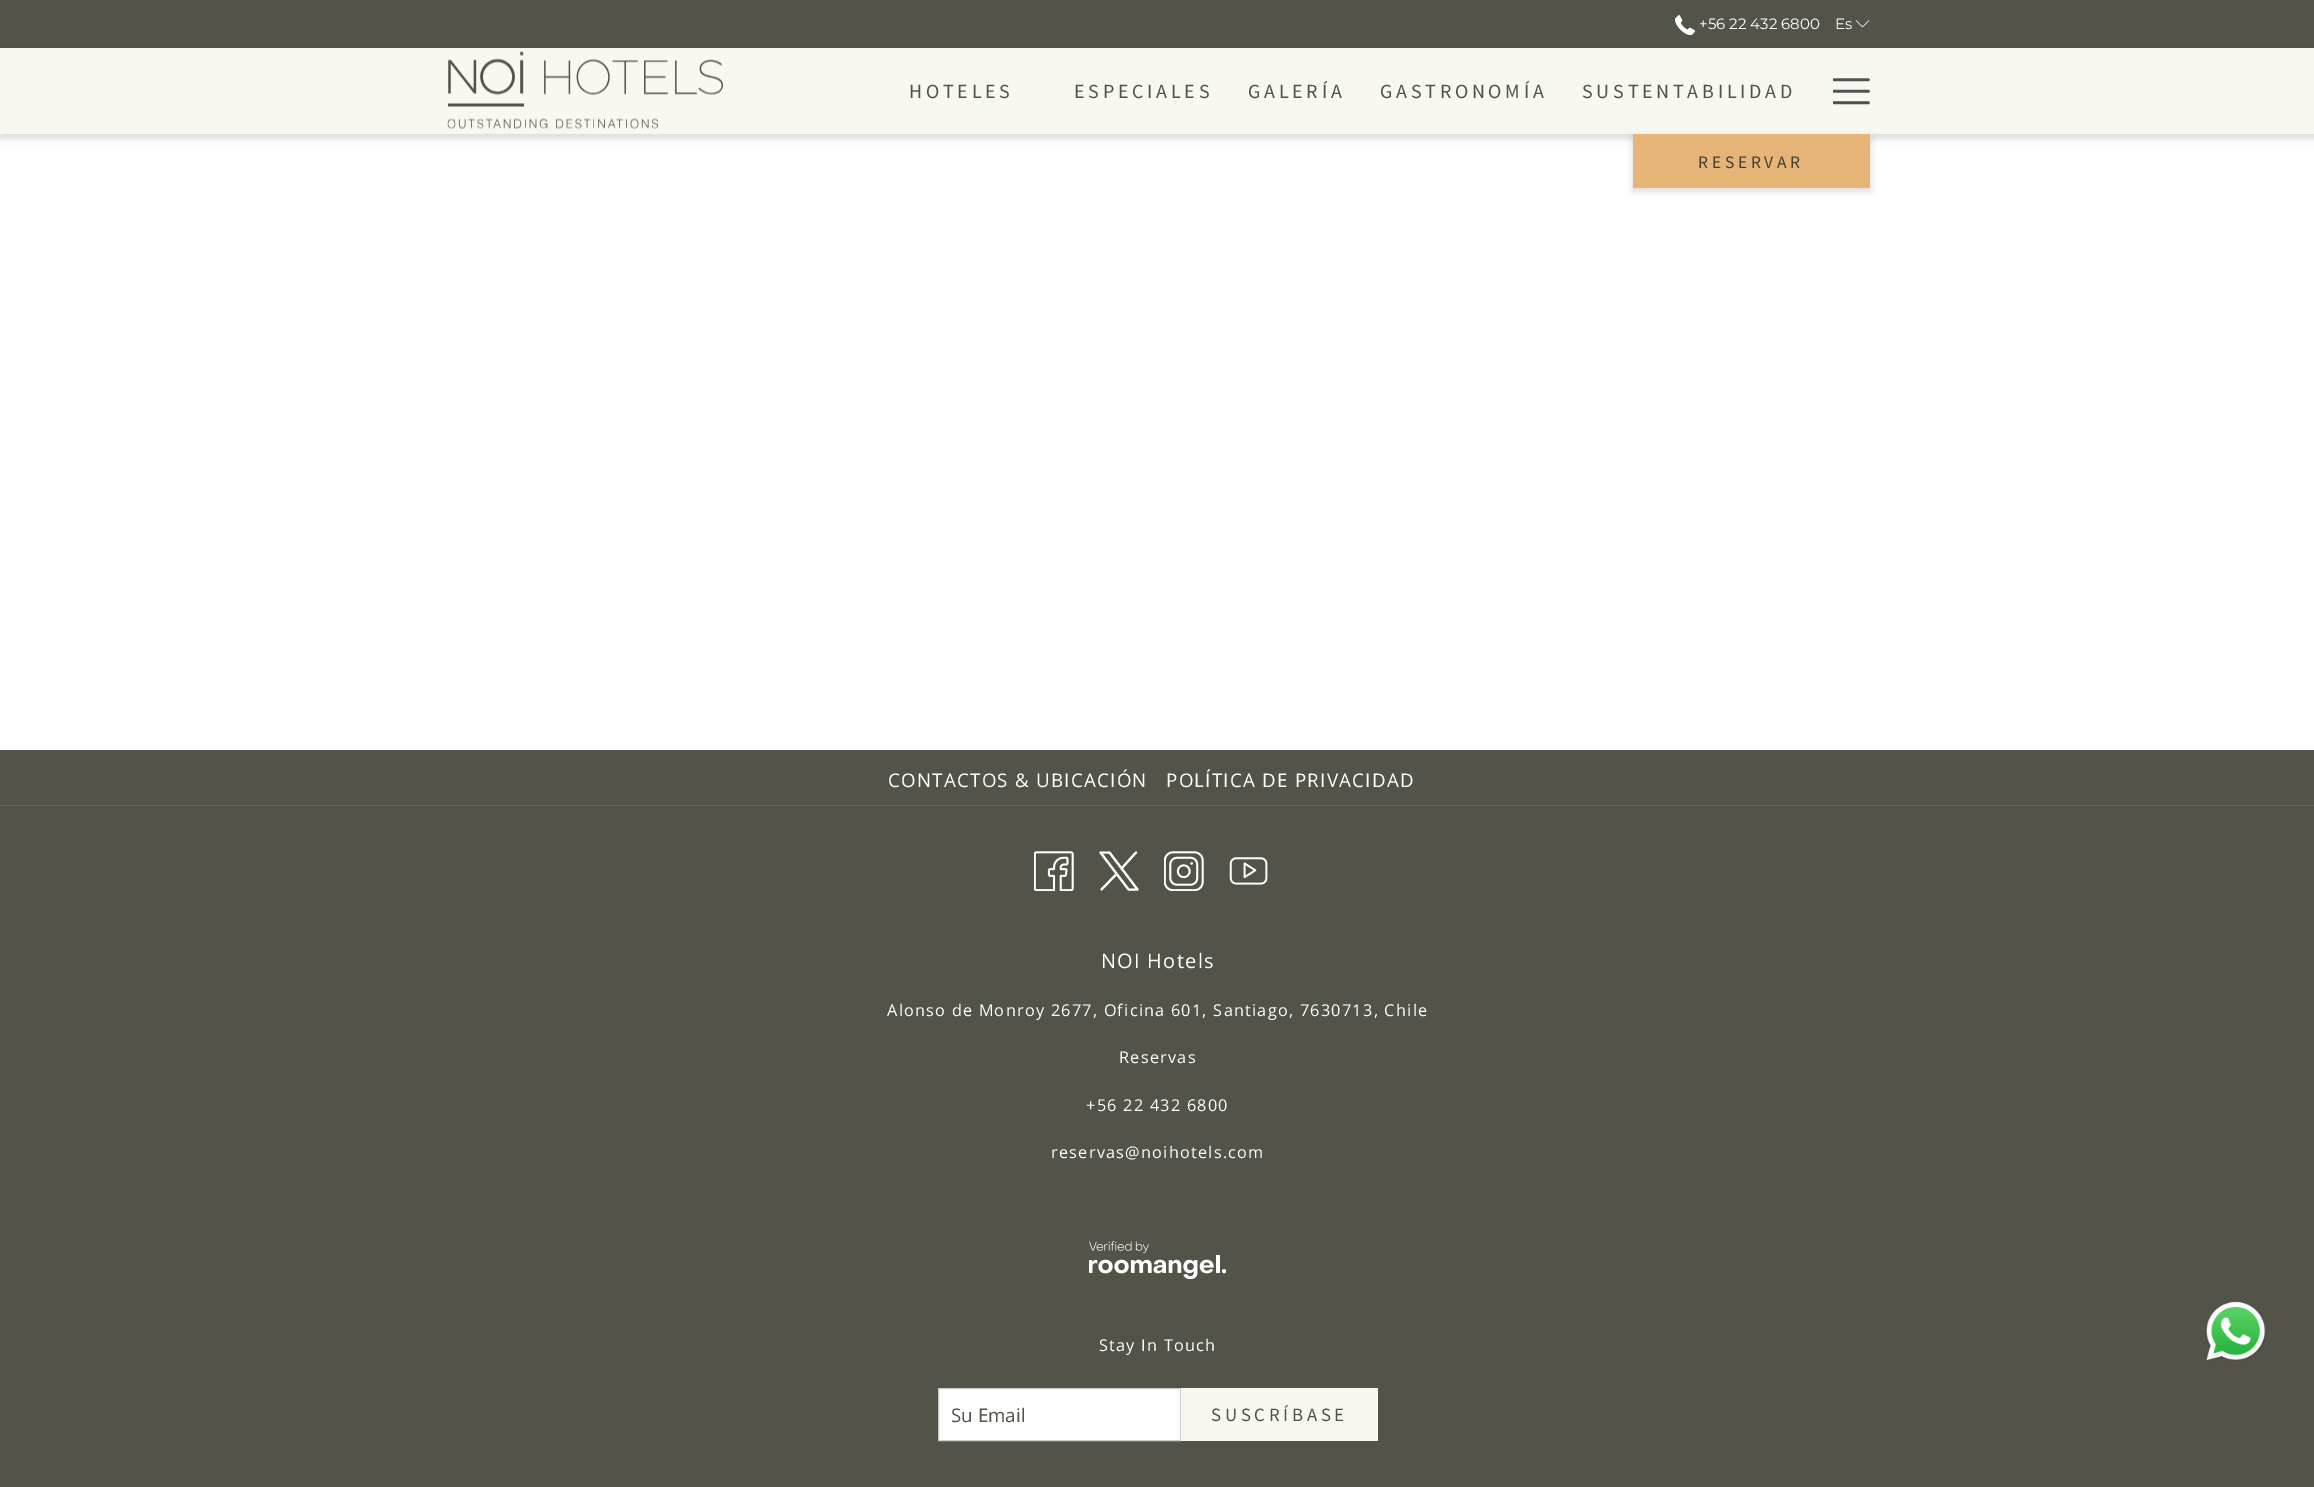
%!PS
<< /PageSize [2314 1487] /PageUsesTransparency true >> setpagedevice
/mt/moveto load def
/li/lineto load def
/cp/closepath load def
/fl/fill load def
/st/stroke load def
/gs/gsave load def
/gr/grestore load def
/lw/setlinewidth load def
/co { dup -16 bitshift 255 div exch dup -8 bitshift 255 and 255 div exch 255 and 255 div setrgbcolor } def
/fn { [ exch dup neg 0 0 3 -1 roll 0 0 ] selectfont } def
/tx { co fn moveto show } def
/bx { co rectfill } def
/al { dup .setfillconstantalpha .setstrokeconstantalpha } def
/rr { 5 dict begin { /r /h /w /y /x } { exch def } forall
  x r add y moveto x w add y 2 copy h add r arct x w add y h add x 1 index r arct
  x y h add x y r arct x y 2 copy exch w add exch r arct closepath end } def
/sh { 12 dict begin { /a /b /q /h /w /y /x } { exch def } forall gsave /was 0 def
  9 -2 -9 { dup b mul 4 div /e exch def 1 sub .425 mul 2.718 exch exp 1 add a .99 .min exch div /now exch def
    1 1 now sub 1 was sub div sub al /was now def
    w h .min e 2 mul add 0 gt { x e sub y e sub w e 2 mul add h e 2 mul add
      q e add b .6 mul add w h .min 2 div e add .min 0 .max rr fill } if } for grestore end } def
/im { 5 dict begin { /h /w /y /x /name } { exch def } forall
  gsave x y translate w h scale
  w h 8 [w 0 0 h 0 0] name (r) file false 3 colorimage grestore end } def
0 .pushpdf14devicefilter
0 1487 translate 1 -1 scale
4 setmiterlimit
0 0 2314 1487 16#FFFFFF bx
0 0 2314 48 16#54534A bx
(media/1.raw) 1675 15 20 20 im
(media/2.raw) 1855 20 15 8 im
16#000000 co
0 51 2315 87 0 4 .15 sh
0 48 2314 86 16#F9F8F0 bx
(media/3.raw) 447 51 276 78 im
(media/4.raw) 1833 78 37 27 im
16#000000 co
1633 138 237 53 0 4 .15 sh
1633 134 237 54 16#E6B477 bx
0 750 2314 737 16#54534A bx
0 805 2314 1 16#65645C bx
(media/5.raw) 1034 851 40 40 im
16#FFFFFF co
2.1 lw
1 setlinecap
1 setlinejoin
1128.5 889.5 mt 1100.5 852.5 li 1109.5 852.5 li 1137.5 889.5 li cp 1136 852.5 mt 1121.5 868.5 li 1101.5 889.5 mt 1116.5 874 li st
(media/6.raw) 1164 851 40 40 im
(media/7.raw) 1229 857 39 28 im
(media/8.raw) 1089 1241 137 38 im
938.5 1388.5 mt 1180.5 1388.5 li 1180.5 1440.5 li 938.5 1440.5 li cp gs fl gr
16#CCCCCC co
1 lw
0 setlinecap
0 setlinejoin
st
1181 1388 197 53 16#F9F8F0 bx
(media/9.raw) 2206 1301 60 60 im
(+56 22 432 6800) 1699 29 /Montserrat-Regular 15 16#FFFFFF tx
(Es) 1835 29 /Montserrat-Regular 15 16#FFFFFF tx
/SourceSansPro-Regular 20 fn
16#515151 co
909 98 mt 3.75 0 (HOTELES) ashow
1074 98 mt 3.75 0 (ESPECIALES) ashow
1248 98 mt 3.75 0 (GALERÍA) ashow
1380 98 mt 3.75 0 (GASTRONOMÍA) ashow
1582 98 mt 3.75 0 (SUSTENTABILIDAD) ashow
/SourceSansPro-Regular 17.5 fn
16#424136 co
1698 168 mt 3.75 0 (RESERVAR) ashow
/OpenSans-Regular 18.75 fn
16#FFFFFF co
888 787 mt 1.25 0 (CONTACTOS & UBICACIÓN) ashow
1166 787 mt 1.25 0 (POLÍTICA DE PRIVACIDAD) ashow
/OpenSans-Regular 20 fn
1101 968 mt 1.25 0 (NOI Hotels) ashow
/OpenSans-Regular 16.25 fn
887 1016 mt 1.25 0 (Alonso de Monroy 2677, Oficina 601, Santiago, 7630713, Chile) ashow
1119 1063 mt 1.25 0 (Reservas) ashow
1086 1111 mt 1.25 0 (+56 22 432 6800) ashow
1051 1158 mt 1.25 0 (reservas@noihotels.com) ashow
1099 1351 mt 1.25 0 (Stay In Touch) ashow
(Su Email) 951 1422 /OpenSans-Regular 18.75 16#54534A tx
/SourceSansPro-Regular 18.75 fn
16#515151 co
1211 1421 mt 3.75 0 (SUSCRÍBASE) ashow
.poppdf14devicefilter showpage
